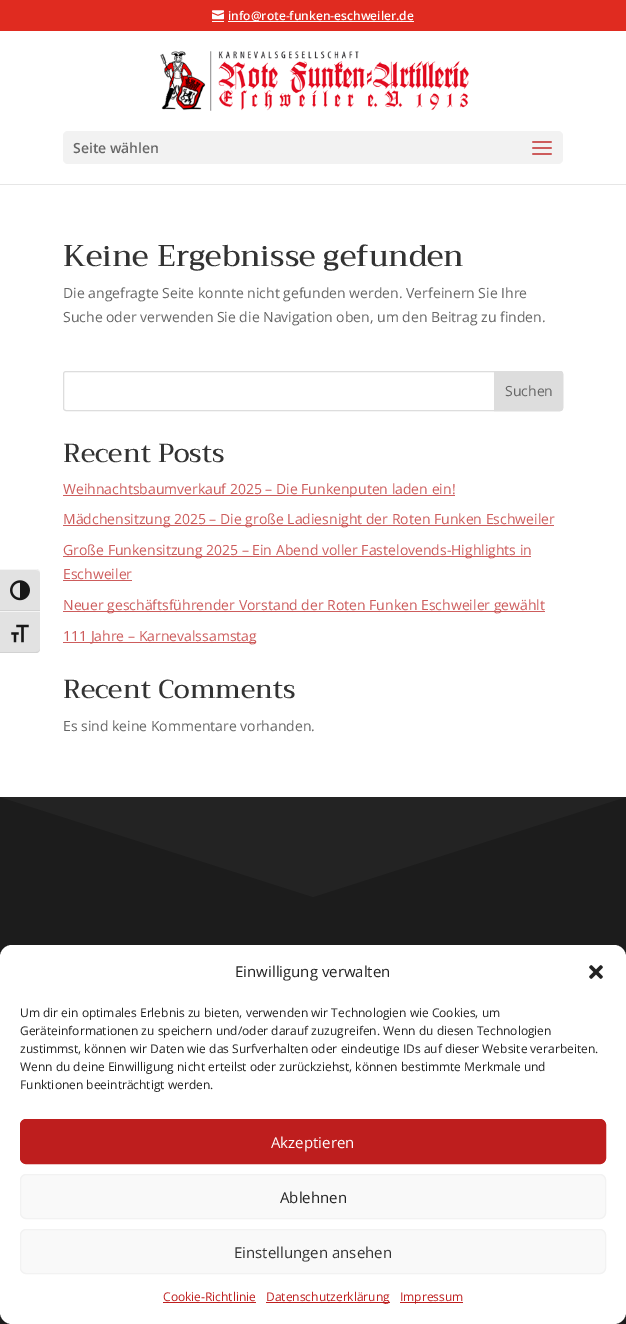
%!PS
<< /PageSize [626 1324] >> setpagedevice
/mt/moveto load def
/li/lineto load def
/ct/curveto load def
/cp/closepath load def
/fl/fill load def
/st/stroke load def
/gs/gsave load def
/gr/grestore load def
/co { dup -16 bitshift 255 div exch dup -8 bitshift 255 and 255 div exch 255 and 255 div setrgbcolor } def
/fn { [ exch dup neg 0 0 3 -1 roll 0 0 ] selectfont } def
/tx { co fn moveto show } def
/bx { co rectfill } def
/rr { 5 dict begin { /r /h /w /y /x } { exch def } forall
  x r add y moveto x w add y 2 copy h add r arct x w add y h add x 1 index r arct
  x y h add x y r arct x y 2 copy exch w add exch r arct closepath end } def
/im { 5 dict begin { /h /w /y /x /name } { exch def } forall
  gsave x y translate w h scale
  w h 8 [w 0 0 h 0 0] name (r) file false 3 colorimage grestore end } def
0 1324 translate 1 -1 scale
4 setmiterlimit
0 0 626 1324 16#FFFFFF bx
16#E2E2E2 co
0 569 mt 36 569 li 38 569 40 571 40 573 ct 40 611 li 0 611 li cp fl
16#F5F5F5 co
0 569 mt 0 570 li 36 570 li 38 570 40 571 40 573 ct 40 571 38 569 36 569 ct cp fl
0 610 40 1 16#D2D2D2 bx
(media/1.raw) 10 580 20 21 im
16#E2E2E2 co
0 611 mt 40 611 li 40 649 li 40 651 38 653 36 653 ct 0 653 li cp fl
0 611 40 1 16#F5F5F5 bx
16#D2D2D2 co
0 652 mt 0 653 li 36 653 li 38 653 40 651 40 649 ct 40 651 38 652 36 652 ct cp fl
(media/2.raw) 11 624 18 19 im
0 0 626 31 16#E02B20 bx
(media/3.raw) 212 10 12 10 im
212 21 12 1 16#FFFFFF bx
228 21 186 1 16#FFFFFF bx
0 184 626 1 16#E6E6E6 bx
(media/4.raw) 160 51 309 60 im
16#F2F2F2 co
63 131 500 33 5 rr fl
(media/5.raw) 532 141 20 14 im
16#DDDDDD co
63.5 371.5 499 39 2.5 rr st
494.5 371.5 mt 560 371.5 li 561.5 371.5 562.5 372.5 562.5 374 ct 562.5 408 li 562.5 409.5 561.5 410.5 560 410.5 ct 494.5 410.5 li cp gs fl gr
st
63 495 392 1 16#CD5C5C bx
63 525 491 1 16#CD5C5C bx
63 556 468 1 16#CD5C5C bx
63 580 69 1 16#CD5C5C bx
63 611 482 1 16#CD5C5C bx
63 642 193 1 16#CD5C5C bx
0 797 626 527 16#1C1C1C bx
16#232323 co
313 897 mt 626 797 li 0 797 li cp fl
16#FFFFFF co
0 945 626 379 12 rr fl
(media/6.raw) 589 965 14 14 im
16#BE1E1E co
20.5 1119.5 585 44 5.5 rr gs fl gr
st
16#F9F9F9 co
20.5 1174.5 585 44 5.5 rr gs fl gr
16#F2F2F2 co
st
16#F9F9F9 co
20.5 1229.5 585 44 5.5 rr gs fl gr
16#F2F2F2 co
st
163 1302 93 1 16#BE1E1E bx
266 1302 124 1 16#BE1E1E bx
400 1302 63 1 16#BE1E1E bx
(info@rote-funken-eschweiler.de) 228 20 /OpenSans-SemiBold 12 16#FFFFFF tx
(Seite wählen) 73 153 /OpenSans-SemiBold 14 16#666666 tx
(Keine Ergebnisse gefunden) 63 266 /Trirong-Medium 30 16#333333 tx
(Die angefragte Seite konnte nicht gefunden werden. Verfeinern Sie Ihre) 63 298 /OpenSans-Regular 14 16#666666 tx
(Suche oder verwenden Sie die Navigation oben, um den Beitrag zu finden.) 63 322 /OpenSans-Regular 14 16#666666 tx
(Suchen) 505 396 /OpenSans-Regular 14 16#666666 tx
(Recent Posts) 63 462 /Trirong-Medium 26 16#333333 tx
(Weihnachtsbaumverkauf 2025 – Die Funkenputen laden ein!) 63 494 /OpenSans-Regular 14 16#CD5C5C tx
(Mädchensitzung 2025 – Die große Ladiesnight der Roten Funken Eschweiler) 63 524 /OpenSans-Regular 14 16#CD5C5C tx
(Große Funkensitzung 2025 – Ein Abend voller Fastelovends-Highlights in) 63 555 /OpenSans-Regular 14 16#CD5C5C tx
(Eschweiler) 63 579 /OpenSans-Regular 14 16#CD5C5C tx
(Neuer geschäftsführender Vorstand der Roten Funken Eschweiler gewählt) 63 610 /OpenSans-Regular 14 16#CD5C5C tx
(111 Jahre – Karnevalssamstag) 63 641 /OpenSans-Regular 14 16#CD5C5C tx
(Recent Comments) 63 698 /Trirong-Medium 26 16#333333 tx
(Es sind keine Kommentare vorhanden.) 63 731 /OpenSans-Regular 14 16#666666 tx
(Einwilligung verwalten) 235 977 /OpenSans-Regular 15 16#222222 tx
(Um dir ein optimales Erlebnis zu bieten, verwenden wir Technologien wie Cookies, um) 20 1017 /OpenSans-Regular 12 16#222222 tx
(Geräteinformationen zu speichern und/oder darauf zuzugreifen. Wenn du diesen Technologien) 20 1035 /OpenSans-Regular 12 16#222222 tx
(zustimmst, können wir Daten wie das Surfverhalten oder eindeutige IDs auf dieser Website verarbeiten.) 20 1053 /OpenSans-Regular 12 16#222222 tx
(Wenn du deine Einwilligung nicht erteilst oder zurückziehst, können bestimmte Merkmale und) 20 1071 /OpenSans-Regular 12 16#222222 tx
(Funktionen beeinträchtigt werden.) 20 1089 /OpenSans-Regular 12 16#222222 tx
(Akzeptieren) 271 1148 /OpenSans-Regular 15 16#FFFFFF tx
(Ablehnen) 280 1203 /OpenSans-Regular 15 16#222222 tx
(Einstellungen ansehen) 234 1258 /OpenSans-Regular 15 16#333333 tx
(Cookie-Richtlinie) 163 1301 /OpenSans-Regular 12 16#BE1E1E tx
(Datenschutzerklärung) 266 1301 /OpenSans-Regular 12 16#BE1E1E tx
(Impressum) 400 1301 /OpenSans-Regular 12 16#BE1E1E tx
showpage
